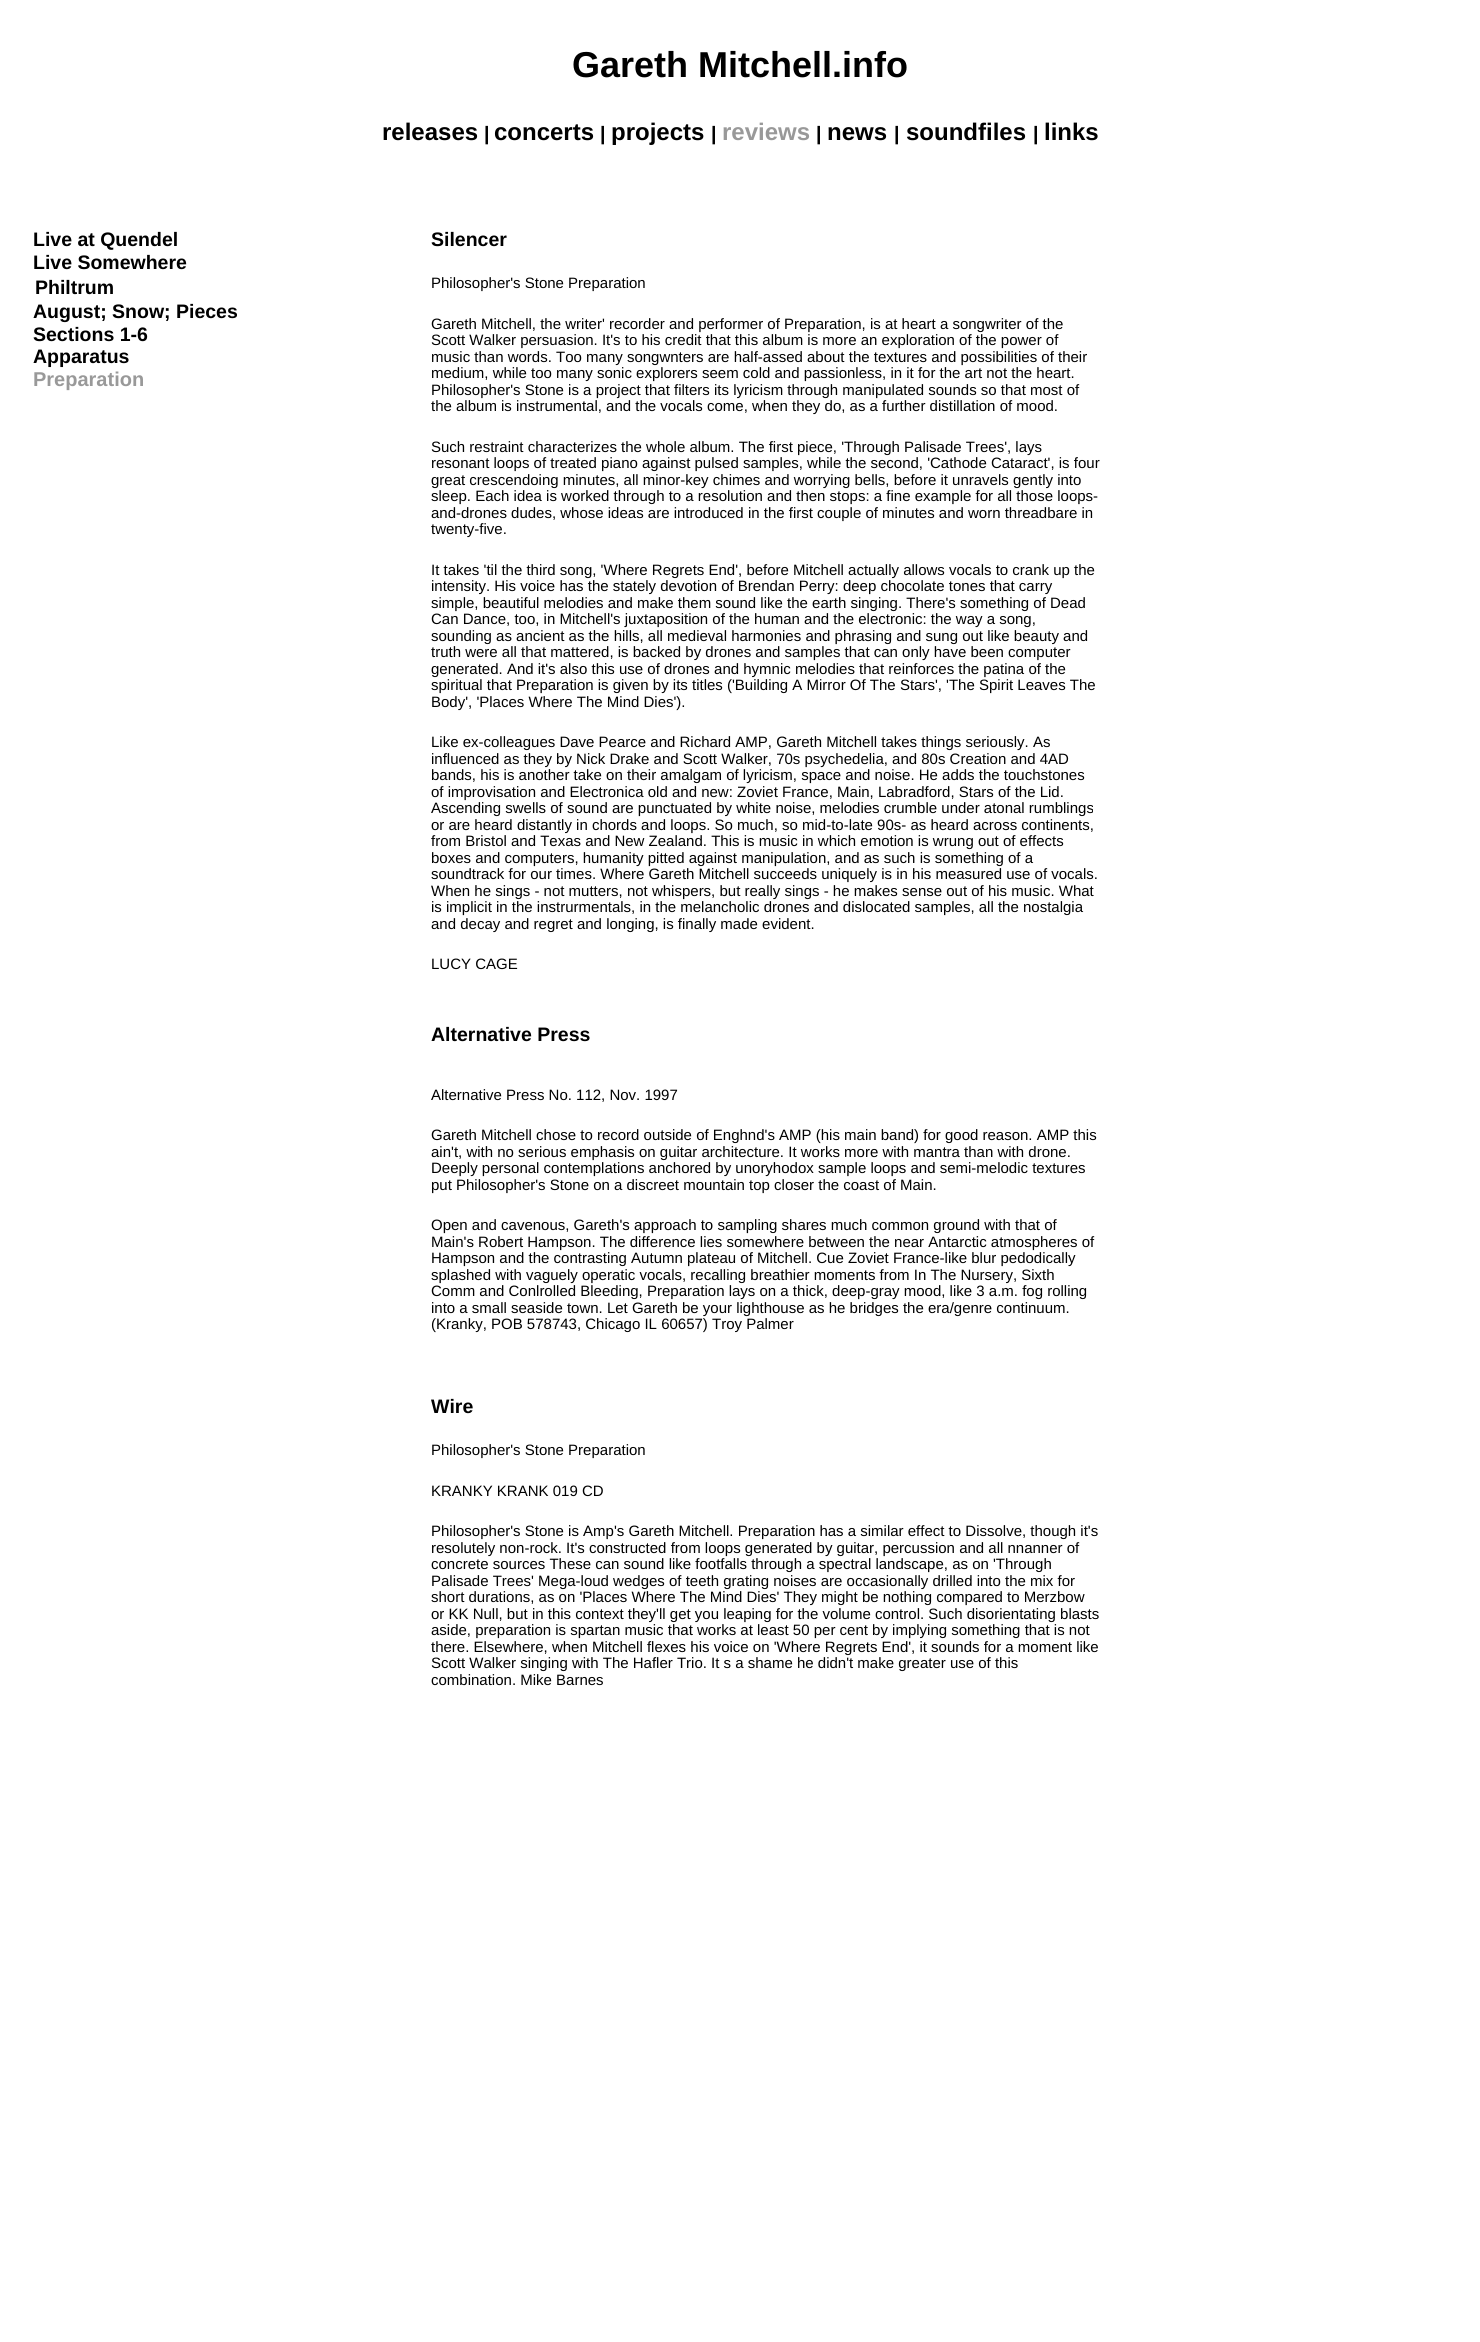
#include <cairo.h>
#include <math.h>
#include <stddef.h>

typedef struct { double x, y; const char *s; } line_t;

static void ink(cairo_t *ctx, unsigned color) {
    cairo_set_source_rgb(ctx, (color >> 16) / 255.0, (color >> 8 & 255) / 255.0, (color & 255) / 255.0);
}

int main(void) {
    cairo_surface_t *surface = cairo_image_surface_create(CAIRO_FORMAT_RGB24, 1480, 2342);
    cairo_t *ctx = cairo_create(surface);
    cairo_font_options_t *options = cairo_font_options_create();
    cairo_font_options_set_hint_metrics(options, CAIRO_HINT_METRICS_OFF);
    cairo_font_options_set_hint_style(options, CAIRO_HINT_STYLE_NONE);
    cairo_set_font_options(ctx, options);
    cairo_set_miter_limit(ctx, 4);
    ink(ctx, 0xFFFFFF);
    cairo_paint(ctx);
    cairo_select_font_face(ctx, "Liberation Sans", CAIRO_FONT_SLANT_NORMAL, CAIRO_FONT_WEIGHT_BOLD);
    cairo_set_font_size(ctx, 36);
    ink(ctx, 0x000000);
    cairo_move_to(ctx, 572, 77);
    cairo_show_text(ctx, "Gareth Mitchell.info");
    cairo_set_font_size(ctx, 24);
    cairo_move_to(ctx, 382, 140);
    cairo_show_text(ctx, "releases");
    cairo_set_font_size(ctx, 19.5);
    cairo_move_to(ctx, 484, 140);
    cairo_show_text(ctx, "|");
    cairo_set_font_size(ctx, 24);
    cairo_move_to(ctx, 494, 140);
    cairo_show_text(ctx, "concerts");
    cairo_set_font_size(ctx, 19.5);
    cairo_move_to(ctx, 600, 140);
    cairo_show_text(ctx, "|");
    cairo_set_font_size(ctx, 24);
    cairo_move_to(ctx, 611, 140);
    cairo_show_text(ctx, "projects");
    cairo_set_font_size(ctx, 19.5);
    cairo_move_to(ctx, 711, 140);
    cairo_show_text(ctx, "|");
    cairo_set_font_size(ctx, 24);
    ink(ctx, 0x999999);
    cairo_move_to(ctx, 722, 140);
    cairo_show_text(ctx, "reviews");
    cairo_set_font_size(ctx, 19.5);
    ink(ctx, 0x000000);
    cairo_move_to(ctx, 816, 140);
    cairo_show_text(ctx, "|");
    cairo_set_font_size(ctx, 24);
    cairo_move_to(ctx, 827, 140);
    cairo_show_text(ctx, "news");
    cairo_set_font_size(ctx, 19.5);
    cairo_move_to(ctx, 894, 140);
    cairo_show_text(ctx, "|");
    cairo_set_font_size(ctx, 24);
    cairo_move_to(ctx, 906, 140);
    cairo_show_text(ctx, "soundfiles");
    cairo_set_font_size(ctx, 19.5);
    cairo_move_to(ctx, 1033, 140);
    cairo_show_text(ctx, "|");
    cairo_set_font_size(ctx, 24);
    cairo_move_to(ctx, 1044, 140);
    cairo_show_text(ctx, "links");
    cairo_set_font_size(ctx, 19.5);
    {
        static const line_t items[] = {
            {33, 246, "Live at Quendel"},
            {33, 269, "Live Somewhere"},
            {35, 294, "Philtrum"},
            {33, 318, "August; Snow; Pieces"},
            {33, 341, "Sections 1-6"},
            {33, 363, "Apparatus"},
        };
        for (size_t i = 0; i < sizeof items / sizeof *items; i++) {
            cairo_move_to(ctx, items[i].x, items[i].y);
            cairo_show_text(ctx, items[i].s);
        }
    }
    cairo_set_font_size(ctx, 20);
    ink(ctx, 0x999999);
    cairo_move_to(ctx, 33, 386);
    cairo_show_text(ctx, "Preparation");
    cairo_set_font_size(ctx, 19.5);
    ink(ctx, 0x000000);
    cairo_move_to(ctx, 431, 246);
    cairo_show_text(ctx, "Silencer");
    cairo_select_font_face(ctx, "Liberation Sans", CAIRO_FONT_SLANT_NORMAL, CAIRO_FONT_WEIGHT_NORMAL);
    cairo_set_font_size(ctx, 15);
    {
        static const line_t items[] = {
            {431, 288, "Philosopher's Stone Preparation"},
            {431, 329, "Gareth Mitchell, the writer' recorder and performer of Preparation, is at heart a songwriter of the"},
            {431, 345, "Scott Walker persuasion. It's to his credit that this album is more an exploration of the power of"},
            {431, 362, "music than words. Too many songwnters are half-assed about the textures and possibilities of their"},
            {431, 378, "medium, while too many sonic explorers seem cold and passionless, in it for the art not the heart."},
            {431, 395, "Philosopher's Stone is a project that filters its lyricism through manipulated sounds so that most of"},
            {431, 411, "the album is instrumental, and the vocals come, when they do, as a further distillation of mood."},
            {431, 452, "Such restraint characterizes the whole album. The first piece, 'Through Palisade Trees', lays"},
            {431, 468, "resonant loops of treated piano against pulsed samples, while the second, 'Cathode Cataract', is four"},
            {431, 485, "great crescendoing minutes, all minor-key chimes and worrying bells, before it unravels gently into"},
            {431, 501, "sleep. Each idea is worked through to a resolution and then stops: a fine example for all those loops-"},
            {431, 518, "and-drones dudes, whose ideas are introduced in the first couple of minutes and worn threadbare in"},
            {431, 534, "twenty-five."},
            {431, 575, "It takes 'til the third song, 'Where Regrets End', before Mitchell actually allows vocals to crank up the"},
            {431, 591, "intensity. His voice has the stately devotion of Brendan Perry: deep chocolate tones that carry"},
            {431, 608, "simple, beautiful melodies and make them sound like the earth singing. There's something of Dead"},
            {431, 624, "Can Dance, too, in Mitchell's juxtaposition of the human and the electronic: the way a song,"},
            {431, 641, "sounding as ancient as the hills, all medieval harmonies and phrasing and sung out like beauty and"},
            {431, 657, "truth were all that mattered, is backed by drones and samples that can only have been computer"},
            {431, 674, "generated. And it's also this use of drones and hymnic melodies that reinforces the patina of the"},
            {431, 690, "spiritual that Preparation is given by its titles ('Building A Mirror Of The Stars', 'The Spirit Leaves The"},
            {431, 707, "Body', 'Places Where The Mind Dies')."},
            {431, 747, "Like ex-colleagues Dave Pearce and Richard AMP, Gareth Mitchell takes things seriously. As"},
            {431, 764, "influenced as they by Nick Drake and Scott Walker, 70s psychedelia, and 80s Creation and 4AD"},
            {431, 780, "bands, his is another take on their amalgam of lyricism, space and noise. He adds the touchstones"},
            {431, 797, "of improvisation and Electronica old and new: Zoviet France, Main, Labradford, Stars of the Lid."},
            {431, 813, "Ascending swells of sound are punctuated by white noise, melodies crumble under atonal rumblings"},
            {431, 830, "or are heard distantly in chords and loops. So much, so mid-to-late 90s- as heard across continents,"},
            {431, 846, "from Bristol and Texas and New Zealand. This is music in which emotion is wrung out of effects"},
            {431, 863, "boxes and computers, humanity pitted against manipulation, and as such is something of a"},
            {431, 879, "soundtrack for our times. Where Gareth Mitchell succeeds uniquely is in his measured use of vocals."},
            {431, 896, "When he sings - not mutters, not whispers, but really sings - he makes sense out of his music. What"},
            {431, 912, "is implicit in the instrurmentals, in the melancholic drones and dislocated samples, all the nostalgia"},
            {431, 929, "and decay and regret and longing, is finally made evident."},
            {431, 969, "LUCY CAGE"},
        };
        for (size_t i = 0; i < sizeof items / sizeof *items; i++) {
            cairo_move_to(ctx, items[i].x, items[i].y);
            cairo_show_text(ctx, items[i].s);
        }
    }
    cairo_select_font_face(ctx, "Liberation Sans", CAIRO_FONT_SLANT_NORMAL, CAIRO_FONT_WEIGHT_BOLD);
    cairo_set_font_size(ctx, 19.5);
    cairo_move_to(ctx, 431, 1041);
    cairo_show_text(ctx, "Alternative Press");
    cairo_select_font_face(ctx, "Liberation Sans", CAIRO_FONT_SLANT_NORMAL, CAIRO_FONT_WEIGHT_NORMAL);
    cairo_set_font_size(ctx, 15);
    {
        static const line_t items[] = {
            {431, 1100, "Alternative Press No. 112, Nov. 1997"},
            {431, 1140, "Gareth Mitchell chose to record outside of Enghnd's AMP (his main band) for good reason. AMP this"},
            {431, 1157, "ain't, with no serious emphasis on guitar architecture. It works more with mantra than with drone."},
            {431, 1173, "Deeply personal contemplations anchored by unoryhodox sample loops and semi-melodic textures"},
            {431, 1190, "put Philosopher's Stone on a discreet mountain top closer the coast of Main."},
            {431, 1230, "Open and cavenous, Gareth's approach to sampling shares much common ground with that of"},
            {431, 1247, "Main's Robert Hampson. The difference lies somewhere between the near Antarctic atmospheres of"},
            {431, 1263, "Hampson and the contrasting Autumn plateau of Mitchell. Cue Zoviet France-like blur pedodically"},
            {431, 1280, "splashed with vaguely operatic vocals, recalling breathier moments from In The Nursery, Sixth"},
            {431, 1296, "Comm and Conlrolled Bleeding, Preparation lays on a thick, deep-gray mood, like 3 a.m. fog rolling"},
            {431, 1313, "into a small seaside town. Let Gareth be your lighthouse as he bridges the era/genre continuum."},
            {431, 1329, "(Kranky, POB 578743, Chicago IL 60657) Troy Palmer"},
        };
        for (size_t i = 0; i < sizeof items / sizeof *items; i++) {
            cairo_move_to(ctx, items[i].x, items[i].y);
            cairo_show_text(ctx, items[i].s);
        }
    }
    cairo_select_font_face(ctx, "Liberation Sans", CAIRO_FONT_SLANT_NORMAL, CAIRO_FONT_WEIGHT_BOLD);
    cairo_set_font_size(ctx, 19.5);
    cairo_move_to(ctx, 431, 1413);
    cairo_show_text(ctx, "Wire");
    cairo_select_font_face(ctx, "Liberation Sans", CAIRO_FONT_SLANT_NORMAL, CAIRO_FONT_WEIGHT_NORMAL);
    cairo_set_font_size(ctx, 15);
    {
        static const line_t items[] = {
            {431, 1455, "Philosopher's Stone Preparation"},
            {431, 1496, "KRANKY KRANK 019 CD"},
            {431, 1536, "Philosopher's Stone is Amp's Gareth Mitchell. Preparation has a similar effect to Dissolve, though it's"},
            {431, 1553, "resolutely non-rock. It's constructed from loops generated by guitar, percussion and all nnanner of"},
            {431, 1569, "concrete sources These can sound like footfalls through a spectral landscape, as on 'Through"},
            {431, 1586, "Palisade Trees' Mega-loud wedges of teeth grating noises are occasionally drilled into the mix for"},
            {431, 1602, "short durations, as on 'Places Where The Mind Dies' They might be nothing compared to Merzbow"},
            {431, 1619, "or KK Null, but in this context they'll get you leaping for the volume control. Such disorientating blasts"},
            {431, 1635, "aside, preparation is spartan music that works at least 50 per cent by implying something that is not"},
            {431, 1652, "there. Elsewhere, when Mitchell flexes his voice on 'Where Regrets End', it sounds for a moment like"},
            {431, 1668, "Scott Walker singing with The Hafler Trio. It s a shame he didn't make greater use of this"},
            {431, 1685, "combination. Mike Barnes"},
        };
        for (size_t i = 0; i < sizeof items / sizeof *items; i++) {
            cairo_move_to(ctx, items[i].x, items[i].y);
            cairo_show_text(ctx, items[i].s);
        }
    }
    cairo_surface_write_to_png(surface, "image.png");
    cairo_font_options_destroy(options);
    cairo_destroy(ctx);
    cairo_surface_destroy(surface);
    return 0;
}
